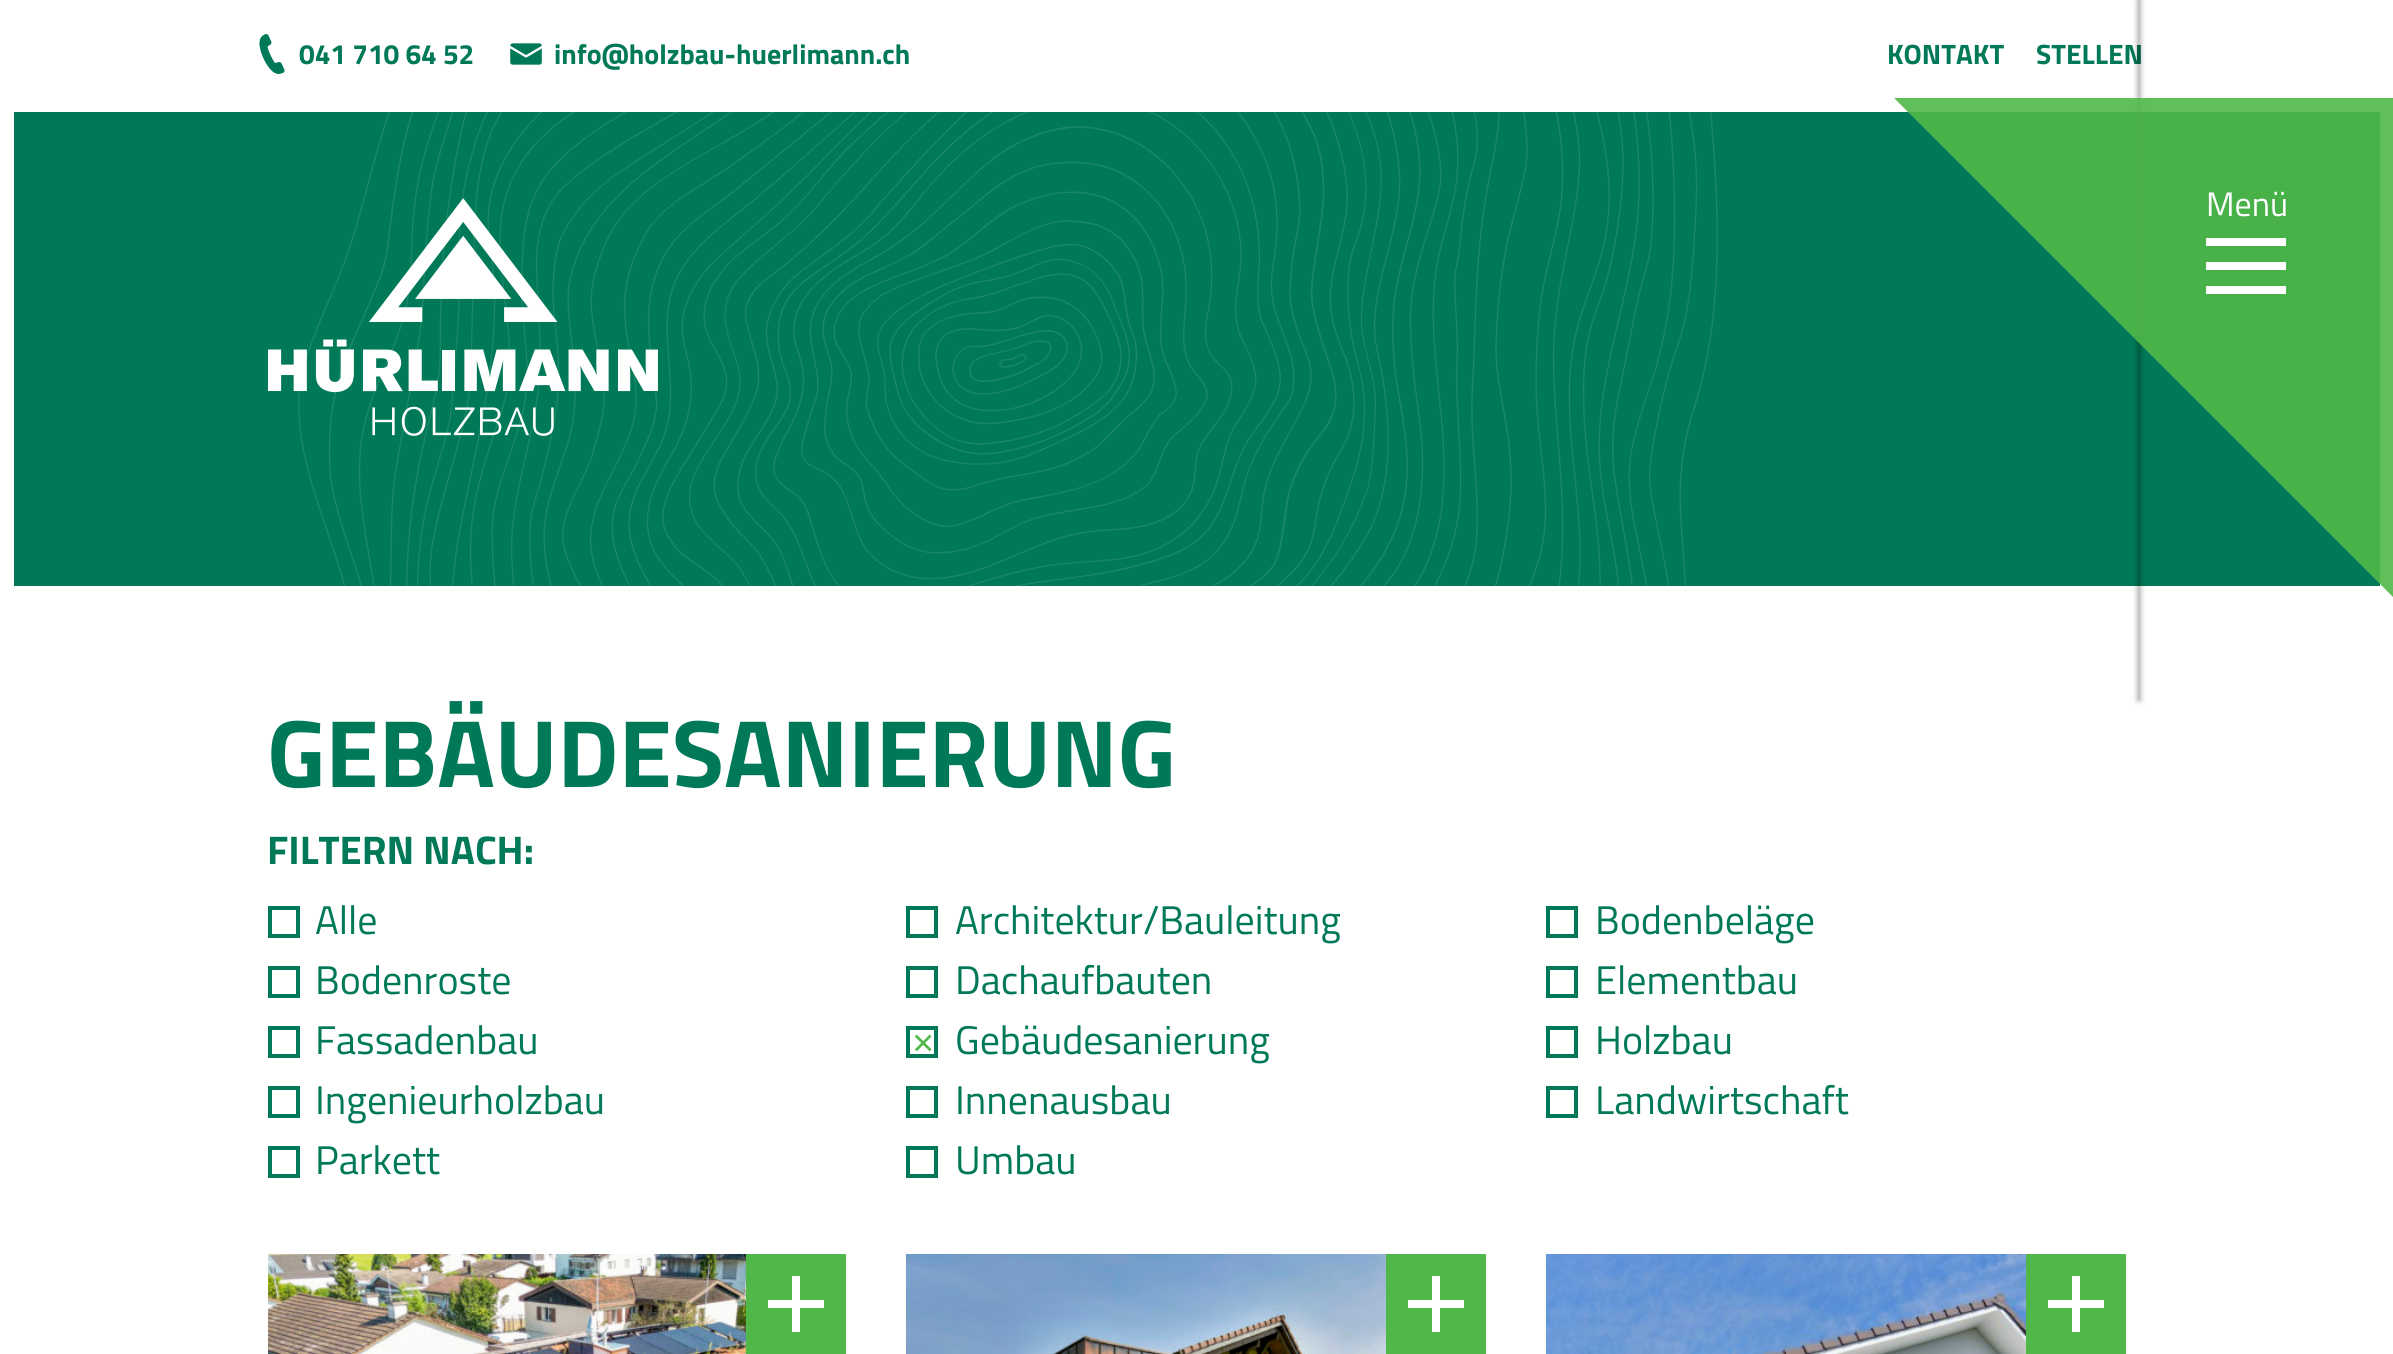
#include <cairo.h>
#include <math.h>
#include <stddef.h>

typedef struct { double x, y; const char *s; } line_t;
typedef struct { double x, y, w, h; unsigned color; } box_t;

static void ink(cairo_t *ctx, unsigned color) {
    cairo_set_source_rgb(ctx, (color >> 16) / 255.0, (color >> 8 & 255) / 255.0, (color & 255) / 255.0);
}

static void round_path(cairo_t *ctx, double x, double y, double w, double h, double r) {
    cairo_new_sub_path(ctx);
    cairo_arc(ctx, x + w - r, y + h - r, r, 0, M_PI / 2);
    cairo_arc(ctx, x + r, y + h - r, r, M_PI / 2, M_PI);
    cairo_arc(ctx, x + r, y + r, r, M_PI, 1.5 * M_PI);
    cairo_arc(ctx, x + w - r, y + r, r, 1.5 * M_PI, 2 * M_PI);
    cairo_close_path(ctx);
}

static void blur_box(cairo_t *ctx, double x, double y, double w, double h, double r, double blur, double alpha) {
    cairo_push_group_with_content(ctx, CAIRO_CONTENT_ALPHA);
    cairo_set_operator(ctx, CAIRO_OPERATOR_SOURCE);
    for (int i = 15; i >= -15 && fmin(w, h) + blur * i / 3 > 0; i -= 2) {
        double e = blur * i / 6;
        cairo_set_source_rgba(ctx, 0, 0, 0, alpha * erfc((i - 1) / 8.5) / 2);
        round_path(ctx, x - e, y - e, w + 2 * e, h + 2 * e, fmax(0, fmin(r + e + blur * .6, fmin(w, h) / 2 + e)));
        cairo_fill(ctx);
    }
    cairo_pattern_t *soft = cairo_pop_group(ctx);
    cairo_mask(ctx, soft);
    cairo_pattern_destroy(soft);
}

static void paste(cairo_t *ctx, const char *path, double x, double y, double w, double h) {
    cairo_surface_t *image = cairo_image_surface_create_from_png(path);
    cairo_save(ctx);
    cairo_set_source_surface(ctx, image, x, y);
    cairo_rectangle(ctx, x, y, w, h);
    cairo_fill(ctx);
    cairo_restore(ctx);
    cairo_surface_destroy(image);
}

int main(void) {
    cairo_surface_t *surface = cairo_image_surface_create(CAIRO_FORMAT_RGB24, 2393, 1354);
    cairo_t *ctx = cairo_create(surface);
    cairo_font_options_t *options = cairo_font_options_create();
    cairo_font_options_set_hint_metrics(options, CAIRO_HINT_METRICS_OFF);
    cairo_font_options_set_hint_style(options, CAIRO_HINT_STYLE_NONE);
    cairo_set_font_options(ctx, options);
    cairo_set_miter_limit(ctx, 4);
    ink(ctx, 0xFFFFFF);
    cairo_paint(ctx);
    paste(ctx, "media/1.png", 259, 34, 26, 40);
    cairo_select_font_face(ctx, "Titillium Web", CAIRO_FONT_SLANT_NORMAL, CAIRO_FONT_WEIGHT_BOLD);
    cairo_set_font_size(ctx, 28);
    ink(ctx, 0x007958);
    cairo_move_to(ctx, 299, 64);
    cairo_show_text(ctx, "041 710 64 52");
    paste(ctx, "media/2.png", 510, 43, 32, 22);
    {
        static const line_t items[] = {
            {554, 64, "info@holzbau-huerlimann.ch"},
            {1887, 64, "KONTAKT"},
            {2036, 64, "STELLEN"},
        };
        for (size_t i = 0; i < sizeof items / sizeof *items; i++) {
            cairo_move_to(ctx, items[i].x, items[i].y);
            cairo_show_text(ctx, items[i].s);
        }
    }
    cairo_rectangle(ctx, 14, 112, 2366, 474);
    cairo_fill(ctx);
    paste(ctx, "media/4.png", 298, 112, 1420, 474);
    paste(ctx, "media/3.png", 268, 198, 390, 238);
    ink(ctx, 0x000000);
    blur_box(ctx, 2138, 0, 2, 700, 0, 3, 0.4);
    cairo_set_source_rgba(ctx, 0.314, 0.722, 0.282, 0.9);
    cairo_new_path(ctx);
    cairo_move_to(ctx, 1894, 98);
    cairo_line_to(ctx, 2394, 98);
    cairo_line_to(ctx, 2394, 598);
    cairo_close_path(ctx);
    cairo_fill(ctx);
    cairo_select_font_face(ctx, "Titillium Web", CAIRO_FONT_SLANT_NORMAL, CAIRO_FONT_WEIGHT_NORMAL);
    cairo_set_font_size(ctx, 34);
    ink(ctx, 0xFFFFFF);
    cairo_move_to(ctx, 2206, 216);
    cairo_show_text(ctx, "Menü");
    {
        static const box_t items[] = {
            {2206, 238, 80, 8, 0xFFFFFF},
            {2206, 262, 80, 8, 0xFFFFFF},
            {2206, 286, 80, 8, 0xFFFFFF},
        };
        for (size_t i = 0; i < sizeof items / sizeof *items; i++) {
            ink(ctx, items[i].color);
            cairo_rectangle(ctx, items[i].x, items[i].y, items[i].w, items[i].h);
            cairo_fill(ctx);
        }
    }
    cairo_select_font_face(ctx, "Titillium Web", CAIRO_FONT_SLANT_NORMAL, CAIRO_FONT_WEIGHT_BOLD);
    cairo_set_font_size(ctx, 95.9);
    ink(ctx, 0x007958);
    cairo_move_to(ctx, 267, 787);
    cairo_show_text(ctx, "GEBÄUDESANIERUNG");
    cairo_set_font_size(ctx, 40);
    cairo_move_to(ctx, 267, 864);
    cairo_show_text(ctx, "FILTERN NACH:");
    cairo_rectangle(ctx, 270, 908, 28, 28);
    cairo_set_line_width(ctx, 4);
    cairo_stroke(ctx);
    cairo_select_font_face(ctx, "Titillium Web", CAIRO_FONT_SLANT_NORMAL, CAIRO_FONT_WEIGHT_NORMAL);
    cairo_move_to(ctx, 315, 934);
    cairo_show_text(ctx, "Alle");
    cairo_rectangle(ctx, 908, 908, 28, 28);
    cairo_stroke(ctx);
    cairo_move_to(ctx, 955, 934);
    cairo_show_text(ctx, "Architektur/Bauleitung");
    cairo_rectangle(ctx, 1548, 908, 28, 28);
    cairo_stroke(ctx);
    cairo_move_to(ctx, 1595, 934);
    cairo_show_text(ctx, "Bodenbeläge");
    cairo_rectangle(ctx, 270, 968, 28, 28);
    cairo_stroke(ctx);
    cairo_move_to(ctx, 315, 994);
    cairo_show_text(ctx, "Bodenroste");
    cairo_rectangle(ctx, 908, 968, 28, 28);
    cairo_stroke(ctx);
    cairo_move_to(ctx, 955, 994);
    cairo_show_text(ctx, "Dachaufbauten");
    cairo_rectangle(ctx, 1548, 968, 28, 28);
    cairo_stroke(ctx);
    cairo_move_to(ctx, 1595, 994);
    cairo_show_text(ctx, "Elementbau");
    cairo_rectangle(ctx, 270, 1028, 28, 28);
    cairo_stroke(ctx);
    cairo_move_to(ctx, 315, 1054);
    cairo_show_text(ctx, "Fassadenbau");
    cairo_rectangle(ctx, 908, 1028, 28, 28);
    cairo_stroke(ctx);
    cairo_move_to(ctx, 955, 1054);
    cairo_show_text(ctx, "Gebäudesanierung");
    ink(ctx, 0x50B848);
    cairo_move_to(ctx, 912, 1053);
    cairo_show_text(ctx, "×");
    cairo_rectangle(ctx, 1548, 1028, 28, 28);
    ink(ctx, 0x007958);
    cairo_stroke(ctx);
    cairo_move_to(ctx, 1595, 1054);
    cairo_show_text(ctx, "Holzbau");
    cairo_rectangle(ctx, 270, 1088, 28, 28);
    cairo_stroke(ctx);
    cairo_move_to(ctx, 315, 1114);
    cairo_show_text(ctx, "Ingenieurholzbau");
    cairo_rectangle(ctx, 908, 1088, 28, 28);
    cairo_stroke(ctx);
    cairo_move_to(ctx, 955, 1114);
    cairo_show_text(ctx, "Innenausbau");
    cairo_rectangle(ctx, 1548, 1088, 28, 28);
    cairo_stroke(ctx);
    cairo_move_to(ctx, 1595, 1114);
    cairo_show_text(ctx, "Landwirtschaft");
    cairo_rectangle(ctx, 270, 1148, 28, 28);
    cairo_stroke(ctx);
    cairo_move_to(ctx, 315, 1174);
    cairo_show_text(ctx, "Parkett");
    cairo_rectangle(ctx, 908, 1148, 28, 28);
    cairo_stroke(ctx);
    cairo_move_to(ctx, 955, 1174);
    cairo_show_text(ctx, "Umbau");
    paste(ctx, "media/5.png", 268, 1254, 478, 100);
    {
        static const box_t items[] = {
            {746, 1254, 100, 100, 0x50B848},
            {792, 1276, 8, 56, 0xFFFFFF},
            {768, 1300, 56, 8, 0xFFFFFF},
        };
        for (size_t i = 0; i < sizeof items / sizeof *items; i++) {
            ink(ctx, items[i].color);
            cairo_rectangle(ctx, items[i].x, items[i].y, items[i].w, items[i].h);
            cairo_fill(ctx);
        }
    }
    paste(ctx, "media/6.png", 906, 1254, 480, 100);
    {
        static const box_t items[] = {
            {1386, 1254, 100, 100, 0x50B848},
            {1432, 1276, 8, 56, 0xFFFFFF},
            {1408, 1300, 56, 8, 0xFFFFFF},
        };
        for (size_t i = 0; i < sizeof items / sizeof *items; i++) {
            ink(ctx, items[i].color);
            cairo_rectangle(ctx, items[i].x, items[i].y, items[i].w, items[i].h);
            cairo_fill(ctx);
        }
    }
    paste(ctx, "media/7.png", 1546, 1254, 480, 100);
    {
        static const box_t items[] = {
            {2026, 1254, 100, 100, 0x50B848},
            {2072, 1276, 8, 56, 0xFFFFFF},
            {2048, 1300, 56, 8, 0xFFFFFF},
        };
        for (size_t i = 0; i < sizeof items / sizeof *items; i++) {
            ink(ctx, items[i].color);
            cairo_rectangle(ctx, items[i].x, items[i].y, items[i].w, items[i].h);
            cairo_fill(ctx);
        }
    }
    cairo_surface_write_to_png(surface, "image.png");
    cairo_font_options_destroy(options);
    cairo_destroy(ctx);
    cairo_surface_destroy(surface);
    return 0;
}
